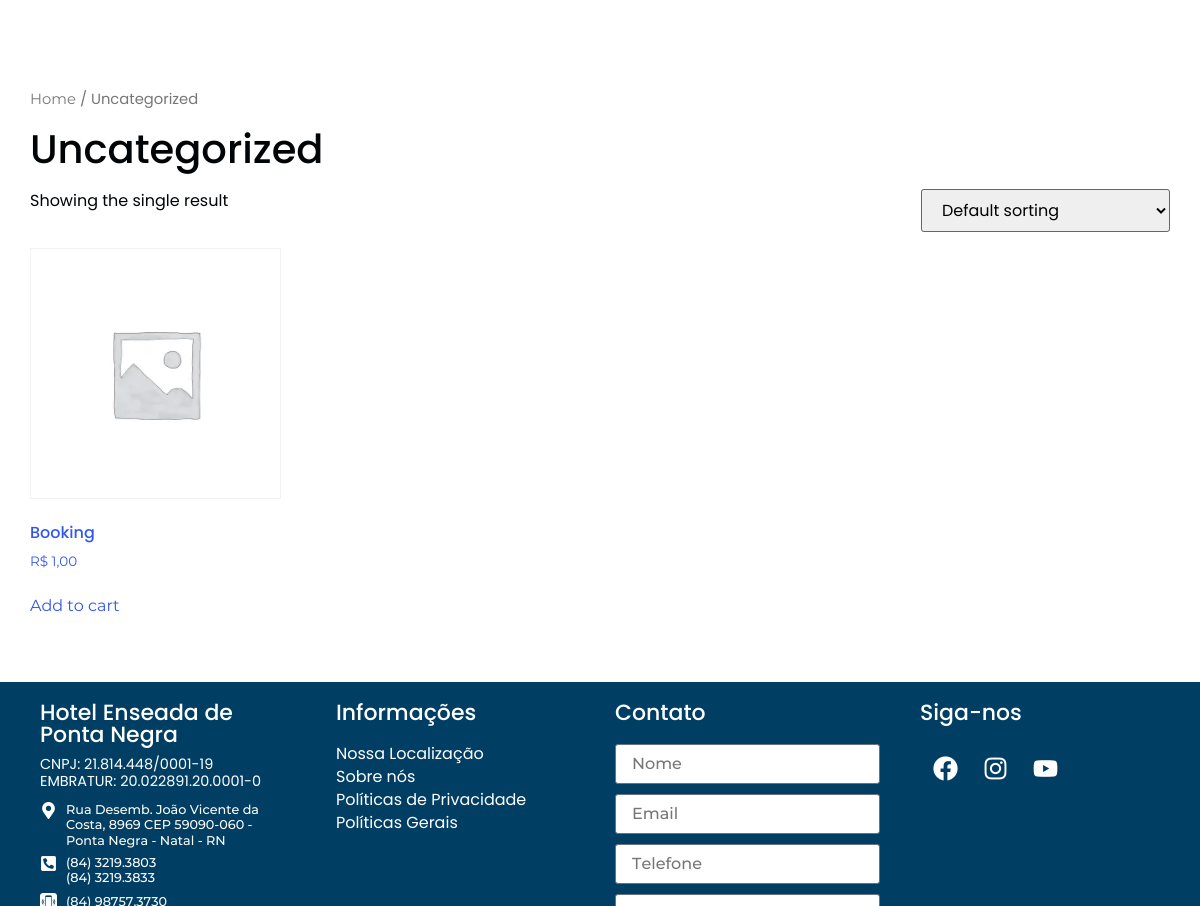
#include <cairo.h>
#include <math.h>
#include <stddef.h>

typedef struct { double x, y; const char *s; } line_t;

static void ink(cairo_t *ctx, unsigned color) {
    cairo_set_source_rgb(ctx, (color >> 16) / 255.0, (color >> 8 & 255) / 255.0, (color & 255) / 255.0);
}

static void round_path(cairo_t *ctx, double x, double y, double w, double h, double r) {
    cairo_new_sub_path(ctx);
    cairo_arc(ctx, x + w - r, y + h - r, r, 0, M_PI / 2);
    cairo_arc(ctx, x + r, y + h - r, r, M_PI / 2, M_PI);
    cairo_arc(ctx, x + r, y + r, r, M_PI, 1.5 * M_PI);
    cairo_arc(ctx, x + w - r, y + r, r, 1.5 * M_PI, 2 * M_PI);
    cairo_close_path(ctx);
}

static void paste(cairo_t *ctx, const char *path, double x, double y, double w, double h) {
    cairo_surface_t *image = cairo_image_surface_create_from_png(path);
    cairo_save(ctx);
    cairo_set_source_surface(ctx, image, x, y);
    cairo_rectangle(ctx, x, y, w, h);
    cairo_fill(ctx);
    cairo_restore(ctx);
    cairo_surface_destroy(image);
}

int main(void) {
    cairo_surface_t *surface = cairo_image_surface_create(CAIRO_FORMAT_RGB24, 1200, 906);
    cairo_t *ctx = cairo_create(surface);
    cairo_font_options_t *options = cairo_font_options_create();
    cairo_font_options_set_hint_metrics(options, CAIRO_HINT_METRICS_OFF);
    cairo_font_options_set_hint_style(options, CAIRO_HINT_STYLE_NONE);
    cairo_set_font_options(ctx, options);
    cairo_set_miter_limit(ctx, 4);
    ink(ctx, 0xFFFFFF);
    cairo_paint(ctx);
    cairo_select_font_face(ctx, "Montserrat", CAIRO_FONT_SLANT_NORMAL, CAIRO_FONT_WEIGHT_NORMAL);
    cairo_set_font_size(ctx, 14.75);
    ink(ctx, 0x767676);
    cairo_move_to(ctx, 30, 104);
    cairo_show_text(ctx, "Home");
    cairo_select_font_face(ctx, "Poppins", CAIRO_FONT_SLANT_NORMAL, CAIRO_FONT_WEIGHT_NORMAL);
    cairo_move_to(ctx, 80, 104);
    cairo_show_text(ctx, "/ Uncategorized");
    cairo_select_font_face(ctx, "Poppins Medium", CAIRO_FONT_SLANT_NORMAL, CAIRO_FONT_WEIGHT_NORMAL);
    cairo_set_font_size(ctx, 40);
    ink(ctx, 0x000406);
    cairo_move_to(ctx, 30, 163);
    cairo_show_text(ctx, "Uncategorized");
    cairo_select_font_face(ctx, "Poppins", CAIRO_FONT_SLANT_NORMAL, CAIRO_FONT_WEIGHT_NORMAL);
    cairo_set_font_size(ctx, 16);
    cairo_move_to(ctx, 30, 206);
    cairo_show_text(ctx, "Showing the single result");
    ink(ctx, 0xEFEFEF);
    round_path(ctx, 921.5, 189.5, 248, 42, 2.5);
    cairo_fill_preserve(ctx);
    ink(ctx, 0x666666);
    cairo_set_line_width(ctx, 1);
    cairo_stroke(ctx);
    cairo_new_path(ctx);
    cairo_move_to(ctx, 1157, 208.5);
    cairo_line_to(ctx, 1161, 212.5);
    cairo_line_to(ctx, 1165, 208.5);
    ink(ctx, 0x000000);
    cairo_set_line_width(ctx, 2);
    cairo_stroke(ctx);
    cairo_move_to(ctx, 942, 216);
    cairo_show_text(ctx, "Default sorting");
    cairo_rectangle(ctx, 30.5, 248.5, 250, 250);
    ink(ctx, 0xF2F2F2);
    cairo_set_line_width(ctx, 1);
    cairo_stroke(ctx);
    paste(ctx, "media/1.png", 111, 332, 92, 90);
    cairo_select_font_face(ctx, "Poppins Medium", CAIRO_FONT_SLANT_NORMAL, CAIRO_FONT_WEIGHT_NORMAL);
    ink(ctx, 0x3157ED);
    cairo_move_to(ctx, 30, 538);
    cairo_show_text(ctx, "Booking");
    cairo_select_font_face(ctx, "Montserrat", CAIRO_FONT_SLANT_NORMAL, CAIRO_FONT_WEIGHT_NORMAL);
    cairo_set_font_size(ctx, 13.5);
    cairo_move_to(ctx, 30, 566);
    cairo_show_text(ctx, "R$ 1,00");
    cairo_set_font_size(ctx, 16);
    cairo_move_to(ctx, 30, 611);
    cairo_show_text(ctx, "Add to cart");
    ink(ctx, 0x003E63);
    cairo_rectangle(ctx, 0, 682, 1200, 224);
    cairo_fill(ctx);
    cairo_select_font_face(ctx, "Poppins Medium", CAIRO_FONT_SLANT_NORMAL, CAIRO_FONT_WEIGHT_NORMAL);
    cairo_set_font_size(ctx, 22);
    ink(ctx, 0xFFFFFF);
    cairo_move_to(ctx, 40, 720);
    cairo_show_text(ctx, "Hotel Enseada de");
    cairo_move_to(ctx, 40, 742);
    cairo_show_text(ctx, "Ponta Negra");
    cairo_select_font_face(ctx, "Poppins", CAIRO_FONT_SLANT_NORMAL, CAIRO_FONT_WEIGHT_NORMAL);
    cairo_set_font_size(ctx, 14.4);
    cairo_move_to(ctx, 40, 769);
    cairo_show_text(ctx, "CNPJ: 21.814.448/0001-19");
    cairo_move_to(ctx, 40, 786);
    cairo_show_text(ctx, "EMBRATUR: 20.022891.20.0001-0");
    paste(ctx, "media/2.png", 42, 802, 13, 17);
    cairo_select_font_face(ctx, "Montserrat Medium", CAIRO_FONT_SLANT_NORMAL, CAIRO_FONT_WEIGHT_NORMAL);
    cairo_set_font_size(ctx, 12.75);
    ink(ctx, 0xFDFBF6);
    {
        static const line_t items[] = {
            {66, 814, "Rua Desemb. João Vicente da"},
            {66, 829, "Costa, 8969 CEP 59090-060 -"},
            {66, 845, "Ponta Negra - Natal - RN"},
        };
        for (size_t i = 0; i < sizeof items / sizeof *items; i++) {
            cairo_move_to(ctx, items[i].x, items[i].y);
            cairo_show_text(ctx, items[i].s);
        }
    }
    paste(ctx, "media/3.png", 41, 856, 15, 15);
    ink(ctx, 0xFFFFFF);
    cairo_move_to(ctx, 66, 867);
    cairo_show_text(ctx, "(84) 3219.3803");
    cairo_move_to(ctx, 66, 882);
    cairo_show_text(ctx, "(84) 3219.3833");
    paste(ctx, "media/4.png", 40, 893, 17, 13);
    ink(ctx, 0xFDFBF6);
    cairo_move_to(ctx, 66, 906);
    cairo_show_text(ctx, "(84) 98757.3730");
    cairo_select_font_face(ctx, "Poppins Medium", CAIRO_FONT_SLANT_NORMAL, CAIRO_FONT_WEIGHT_NORMAL);
    cairo_set_font_size(ctx, 22);
    ink(ctx, 0xFFFFFF);
    cairo_move_to(ctx, 336, 720);
    cairo_show_text(ctx, "Informações");
    cairo_select_font_face(ctx, "Poppins", CAIRO_FONT_SLANT_NORMAL, CAIRO_FONT_WEIGHT_NORMAL);
    cairo_set_font_size(ctx, 16);
    {
        static const line_t items[] = {
            {336, 759, "Nossa Localização"},
            {336, 782, "Sobre nós"},
            {336, 805, "Políticas de Privacidade"},
            {336, 828, "Políticas Gerais"},
        };
        for (size_t i = 0; i < sizeof items / sizeof *items; i++) {
            cairo_move_to(ctx, items[i].x, items[i].y);
            cairo_show_text(ctx, items[i].s);
        }
    }
    cairo_select_font_face(ctx, "Poppins Medium", CAIRO_FONT_SLANT_NORMAL, CAIRO_FONT_WEIGHT_NORMAL);
    cairo_set_font_size(ctx, 22);
    cairo_move_to(ctx, 615, 720);
    cairo_show_text(ctx, "Contato");
    round_path(ctx, 615.5, 744.5, 264, 39, 2.5);
    cairo_fill_preserve(ctx);
    ink(ctx, 0x69727D);
    cairo_stroke(ctx);
    cairo_select_font_face(ctx, "Montserrat Medium", CAIRO_FONT_SLANT_NORMAL, CAIRO_FONT_WEIGHT_NORMAL);
    cairo_set_font_size(ctx, 16);
    ink(ctx, 0x767676);
    cairo_move_to(ctx, 632, 769);
    cairo_show_text(ctx, "Nome");
    ink(ctx, 0xFFFFFF);
    round_path(ctx, 615.5, 794.5, 264, 39, 2.5);
    cairo_fill_preserve(ctx);
    ink(ctx, 0x69727D);
    cairo_stroke(ctx);
    ink(ctx, 0x767676);
    cairo_move_to(ctx, 632, 819);
    cairo_show_text(ctx, "Email");
    ink(ctx, 0xFFFFFF);
    round_path(ctx, 615.5, 844.5, 264, 39, 2.5);
    cairo_fill_preserve(ctx);
    ink(ctx, 0x69727D);
    cairo_stroke(ctx);
    ink(ctx, 0x767676);
    cairo_move_to(ctx, 632, 869);
    cairo_show_text(ctx, "Telefone");
    ink(ctx, 0xFFFFFF);
    round_path(ctx, 615.5, 894.5, 264, 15, 2.5);
    cairo_fill_preserve(ctx);
    ink(ctx, 0x69727D);
    cairo_stroke(ctx);
    cairo_select_font_face(ctx, "Poppins Medium", CAIRO_FONT_SLANT_NORMAL, CAIRO_FONT_WEIGHT_NORMAL);
    cairo_set_font_size(ctx, 22);
    ink(ctx, 0xFFFFFF);
    cairo_move_to(ctx, 920, 720);
    cairo_show_text(ctx, "Siga-nos");
    paste(ctx, "media/5.png", 933, 756, 25, 25);
    paste(ctx, "media/6.png", 984, 757, 23, 23);
    paste(ctx, "media/7.png", 1033, 760, 25, 17);
    cairo_surface_write_to_png(surface, "image.png");
    cairo_font_options_destroy(options);
    cairo_destroy(ctx);
    cairo_surface_destroy(surface);
    return 0;
}
